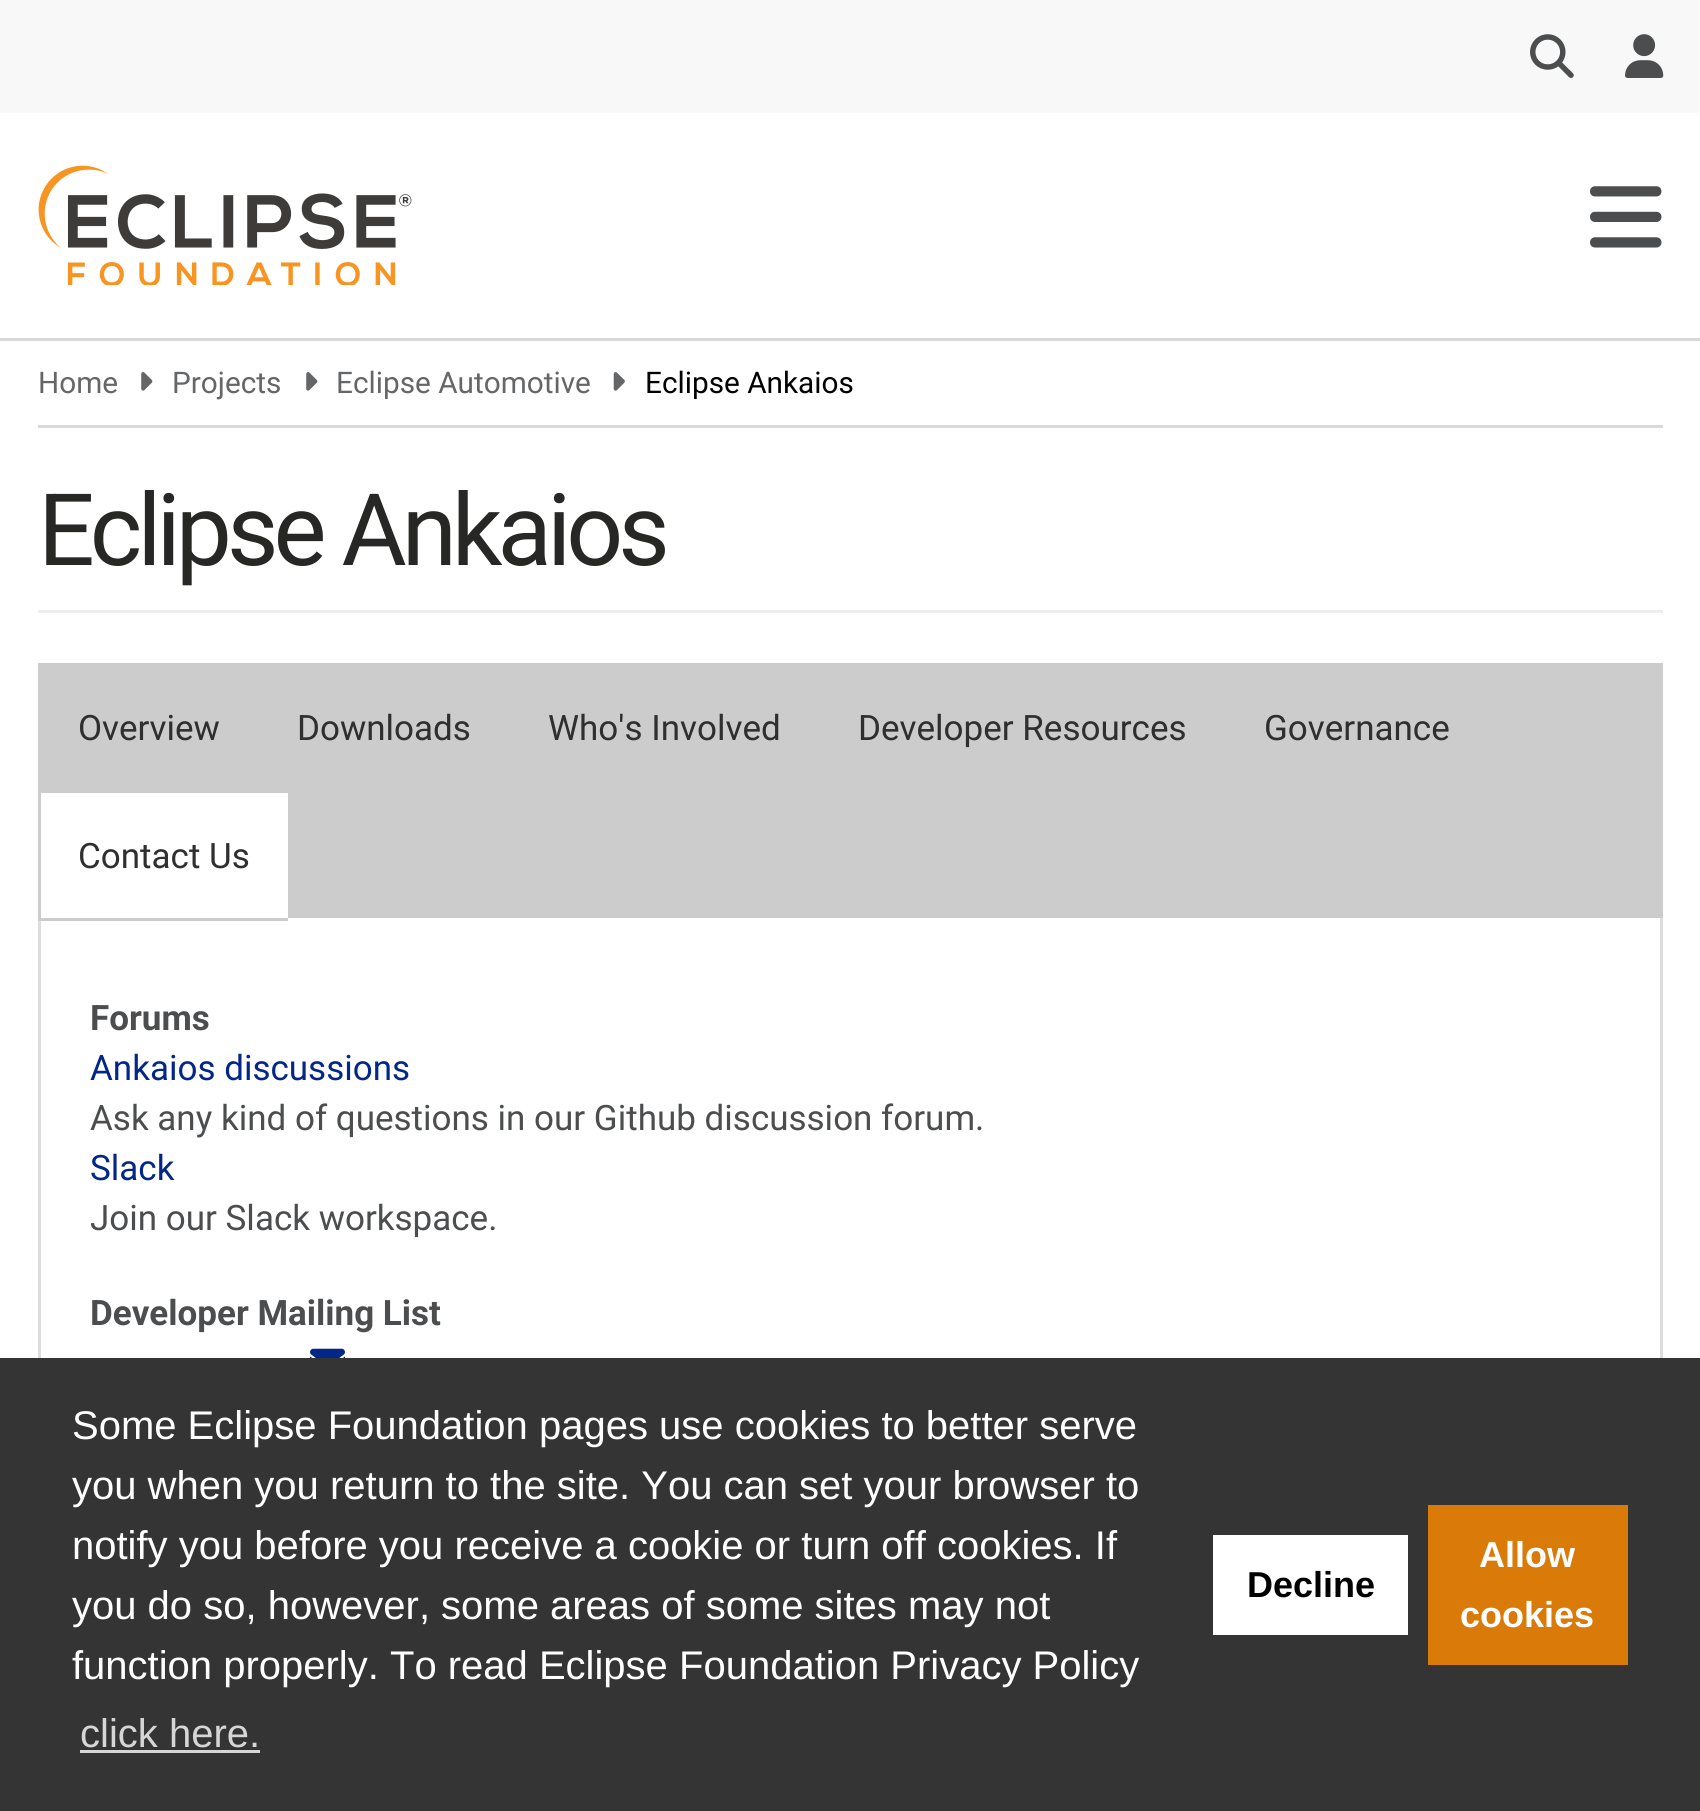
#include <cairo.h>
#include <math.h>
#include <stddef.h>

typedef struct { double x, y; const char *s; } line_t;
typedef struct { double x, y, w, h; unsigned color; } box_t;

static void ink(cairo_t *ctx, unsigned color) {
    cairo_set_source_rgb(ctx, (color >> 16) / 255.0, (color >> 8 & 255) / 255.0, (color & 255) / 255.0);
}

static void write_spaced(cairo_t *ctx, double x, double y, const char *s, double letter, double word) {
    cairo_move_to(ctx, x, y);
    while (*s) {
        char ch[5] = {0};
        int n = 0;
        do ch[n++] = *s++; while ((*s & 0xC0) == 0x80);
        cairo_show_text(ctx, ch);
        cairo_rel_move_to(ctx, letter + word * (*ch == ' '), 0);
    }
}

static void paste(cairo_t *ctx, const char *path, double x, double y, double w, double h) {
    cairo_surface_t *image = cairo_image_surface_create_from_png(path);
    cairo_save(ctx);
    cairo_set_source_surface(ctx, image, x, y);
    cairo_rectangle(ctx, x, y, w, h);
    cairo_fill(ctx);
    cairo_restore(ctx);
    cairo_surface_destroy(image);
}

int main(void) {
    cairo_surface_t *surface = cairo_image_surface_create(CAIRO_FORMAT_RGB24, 1700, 1811);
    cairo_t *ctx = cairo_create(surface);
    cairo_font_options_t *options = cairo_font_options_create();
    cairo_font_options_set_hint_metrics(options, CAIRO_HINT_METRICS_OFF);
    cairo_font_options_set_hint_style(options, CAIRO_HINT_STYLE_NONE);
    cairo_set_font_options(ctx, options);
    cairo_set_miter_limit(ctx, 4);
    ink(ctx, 0xFFFFFF);
    cairo_paint(ctx);
    ink(ctx, 0xF8F8F8);
    cairo_rectangle(ctx, 0, 0, 1700, 113);
    cairo_fill(ctx);
    paste(ctx, "media/1.png", 1530, 34, 44, 44);
    paste(ctx, "media/2.png", 1625, 34, 39, 44);
    ink(ctx, 0xD9D9D9);
    cairo_rectangle(ctx, 0, 338, 1700, 3);
    cairo_fill(ctx);
    paste(ctx, "media/3.png", 38, 165, 374, 120);
    paste(ctx, "media/4.png", 1590, 186, 72, 62);
    cairo_rectangle(ctx, 38, 425, 1625, 3);
    cairo_fill(ctx);
    cairo_select_font_face(ctx, "Roboto", CAIRO_FONT_SLANT_NORMAL, CAIRO_FONT_WEIGHT_NORMAL);
    cairo_set_font_size(ctx, 29.75);
    ink(ctx, 0x656668);
    cairo_move_to(ctx, 38, 393);
    cairo_show_text(ctx, "Home");
    paste(ctx, "media/5.png", 141, 372, 12, 19);
    cairo_move_to(ctx, 172, 393);
    cairo_show_text(ctx, "Projects");
    paste(ctx, "media/5.png", 306, 372, 12, 19);
    cairo_move_to(ctx, 336, 393);
    cairo_show_text(ctx, "Eclipse Automotive");
    paste(ctx, "media/6.png", 613, 372, 12, 19);
    ink(ctx, 0x000000);
    cairo_move_to(ctx, 645, 393);
    cairo_show_text(ctx, "Eclipse Ankaios");
    ink(ctx, 0xEEEEEE);
    cairo_rectangle(ctx, 38, 610, 1625, 3);
    cairo_fill(ctx);
    cairo_set_font_size(ctx, 100);
    ink(ctx, 0x272726);
    write_spaced(ctx, 38, 565, "Eclipse Ankaios", -5, 0);
    ink(ctx, 0xCCCCCC);
    cairo_rectangle(ctx, 38, 663, 1625, 255);
    cairo_fill(ctx);
    cairo_set_font_size(ctx, 35);
    ink(ctx, 0x2F2F2F);
    {
        static const line_t items[] = {
            {78, 740, "Overview"},
            {297, 740, "Downloads"},
            {548, 740, "Who's Involved"},
            {858, 740, "Developer Resources"},
            {1264, 740, "Governance"},
        };
        for (size_t i = 0; i < sizeof items / sizeof *items; i++) {
            cairo_move_to(ctx, items[i].x, items[i].y);
            cairo_show_text(ctx, items[i].s);
        }
    }
    {
        static const box_t items[] = {
            {41, 793, 247, 125, 0xFFFFFF},
            {38, 918, 3, 440, 0xDDDDDD},
            {38, 918, 250, 3, 0xCCCCCC},
        };
        for (size_t i = 0; i < sizeof items / sizeof *items; i++) {
            ink(ctx, items[i].color);
            cairo_rectangle(ctx, items[i].x, items[i].y, items[i].w, items[i].h);
            cairo_fill(ctx);
        }
    }
    ink(ctx, 0x2F2F2F);
    cairo_move_to(ctx, 78, 868);
    cairo_show_text(ctx, "Contact Us");
    ink(ctx, 0xDDDDDD);
    cairo_rectangle(ctx, 1660, 918, 3, 440);
    cairo_fill(ctx);
    cairo_select_font_face(ctx, "Roboto", CAIRO_FONT_SLANT_NORMAL, CAIRO_FONT_WEIGHT_BOLD);
    ink(ctx, 0x4C4D4E);
    cairo_move_to(ctx, 90, 1030);
    cairo_show_text(ctx, "Forums");
    cairo_select_font_face(ctx, "Roboto", CAIRO_FONT_SLANT_NORMAL, CAIRO_FONT_WEIGHT_NORMAL);
    ink(ctx, 0x032788);
    cairo_move_to(ctx, 90, 1080);
    cairo_show_text(ctx, "Ankaios discussions");
    ink(ctx, 0x4C4D4E);
    cairo_move_to(ctx, 90, 1130);
    cairo_show_text(ctx, "Ask any kind of questions in our Github discussion forum.");
    ink(ctx, 0x032788);
    cairo_move_to(ctx, 90, 1180);
    cairo_show_text(ctx, "Slack");
    ink(ctx, 0x4C4D4E);
    cairo_move_to(ctx, 90, 1230);
    cairo_show_text(ctx, "Join our Slack workspace.");
    cairo_select_font_face(ctx, "Roboto", CAIRO_FONT_SLANT_NORMAL, CAIRO_FONT_WEIGHT_BOLD);
    cairo_move_to(ctx, 90, 1325);
    cairo_show_text(ctx, "Developer Mailing List");
    paste(ctx, "media/7.png", 310, 1348, 35, 10);
    ink(ctx, 0x353434);
    cairo_rectangle(ctx, 0, 1358, 1700, 453);
    cairo_fill(ctx);
    cairo_select_font_face(ctx, "Liberation Sans", CAIRO_FONT_SLANT_NORMAL, CAIRO_FONT_WEIGHT_NORMAL);
    cairo_set_font_size(ctx, 40);
    ink(ctx, 0xFFFFFF);
    {
        static const line_t items[] = {
            {72, 1439, "Some Eclipse Foundation pages use cookies to better serve"},
            {72, 1499, "you when you return to the site. You can set your browser to"},
            {72, 1559, "notify you before you receive a cookie or turn off cookies. If"},
            {72, 1619, "you do so, however, some areas of some sites may not"},
            {72, 1679, "function properly. To read Eclipse Foundation Privacy Policy"},
        };
        for (size_t i = 0; i < sizeof items / sizeof *items; i++) {
            cairo_move_to(ctx, items[i].x, items[i].y);
            cairo_show_text(ctx, items[i].s);
        }
    }
    ink(ctx, 0xD7D6D6);
    cairo_move_to(ctx, 80, 1747);
    cairo_show_text(ctx, "click here.");
    cairo_rectangle(ctx, 80, 1750, 180, 3);
    cairo_fill(ctx);
    ink(ctx, 0xFFFFFF);
    cairo_rectangle(ctx, 1213, 1535, 195, 100);
    cairo_fill(ctx);
    cairo_select_font_face(ctx, "Liberation Sans", CAIRO_FONT_SLANT_NORMAL, CAIRO_FONT_WEIGHT_BOLD);
    cairo_set_font_size(ctx, 36);
    ink(ctx, 0x000000);
    cairo_move_to(ctx, 1247, 1597);
    cairo_show_text(ctx, "Decline");
    ink(ctx, 0xDA7A08);
    cairo_rectangle(ctx, 1428, 1505, 200, 160);
    cairo_fill(ctx);
    ink(ctx, 0xFFFFFF);
    cairo_move_to(ctx, 1479, 1567);
    cairo_show_text(ctx, "Allow");
    cairo_move_to(ctx, 1460, 1627);
    cairo_show_text(ctx, "cookies");
    cairo_surface_write_to_png(surface, "image.png");
    cairo_font_options_destroy(options);
    cairo_destroy(ctx);
    cairo_surface_destroy(surface);
    return 0;
}
